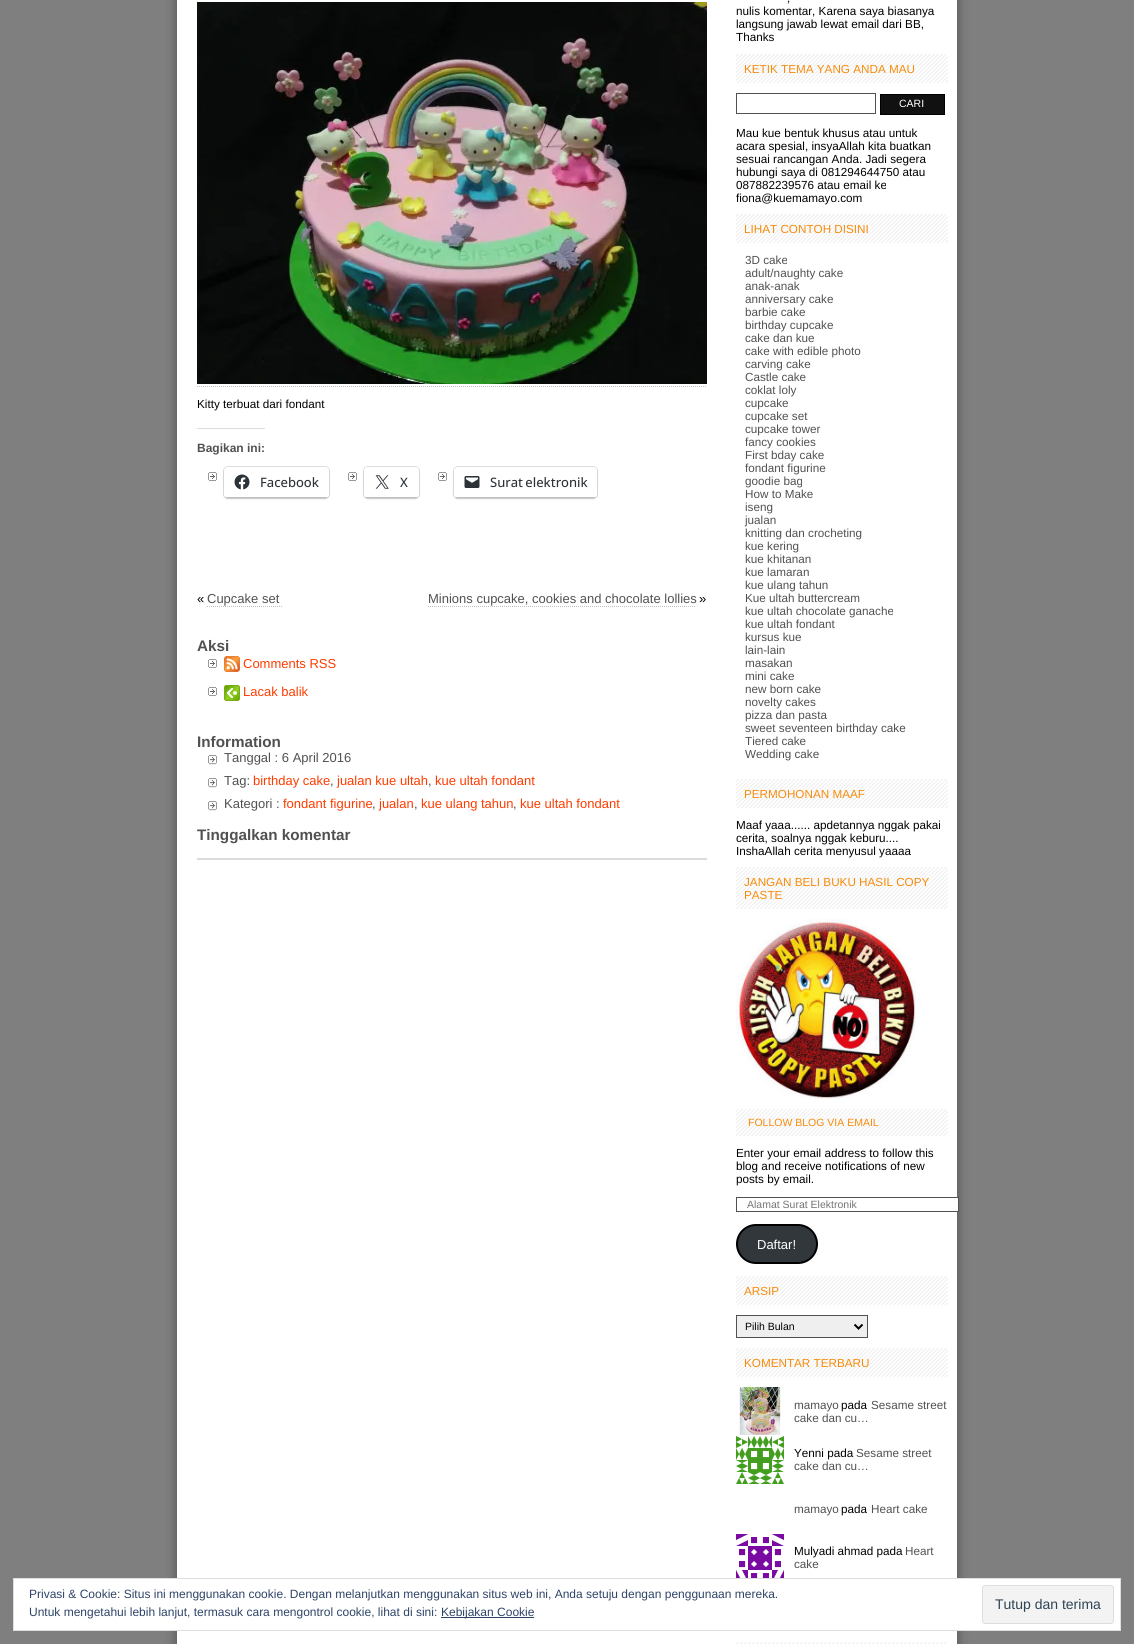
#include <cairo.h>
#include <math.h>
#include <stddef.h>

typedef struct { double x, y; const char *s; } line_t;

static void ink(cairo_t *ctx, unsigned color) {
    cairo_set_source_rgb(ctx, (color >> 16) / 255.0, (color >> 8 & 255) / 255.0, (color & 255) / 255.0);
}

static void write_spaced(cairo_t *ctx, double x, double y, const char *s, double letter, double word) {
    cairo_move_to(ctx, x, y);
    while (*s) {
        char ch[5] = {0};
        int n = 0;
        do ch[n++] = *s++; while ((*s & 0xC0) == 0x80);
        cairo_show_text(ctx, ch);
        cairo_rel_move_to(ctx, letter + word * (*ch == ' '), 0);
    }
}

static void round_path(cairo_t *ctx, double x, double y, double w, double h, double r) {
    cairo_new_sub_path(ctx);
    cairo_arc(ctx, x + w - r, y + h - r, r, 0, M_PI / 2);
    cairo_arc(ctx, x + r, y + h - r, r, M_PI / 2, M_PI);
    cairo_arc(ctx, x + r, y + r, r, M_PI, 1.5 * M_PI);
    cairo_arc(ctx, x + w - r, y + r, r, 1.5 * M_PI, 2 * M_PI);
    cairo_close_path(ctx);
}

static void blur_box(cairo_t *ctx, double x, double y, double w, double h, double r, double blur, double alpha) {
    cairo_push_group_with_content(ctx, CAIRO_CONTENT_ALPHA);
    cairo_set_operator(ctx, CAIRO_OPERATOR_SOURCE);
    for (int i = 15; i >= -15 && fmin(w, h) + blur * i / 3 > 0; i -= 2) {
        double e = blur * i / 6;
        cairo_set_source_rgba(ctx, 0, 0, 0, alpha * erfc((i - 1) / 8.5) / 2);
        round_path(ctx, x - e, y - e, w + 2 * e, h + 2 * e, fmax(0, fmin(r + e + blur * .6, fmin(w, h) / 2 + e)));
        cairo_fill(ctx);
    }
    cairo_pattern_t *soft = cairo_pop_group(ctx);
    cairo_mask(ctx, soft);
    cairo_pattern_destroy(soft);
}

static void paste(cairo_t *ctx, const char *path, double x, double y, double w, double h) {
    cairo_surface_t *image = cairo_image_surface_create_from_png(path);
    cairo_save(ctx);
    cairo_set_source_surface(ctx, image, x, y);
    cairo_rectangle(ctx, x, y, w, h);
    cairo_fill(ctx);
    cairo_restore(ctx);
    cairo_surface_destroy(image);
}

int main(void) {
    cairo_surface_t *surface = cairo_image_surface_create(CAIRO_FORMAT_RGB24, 1134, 1644);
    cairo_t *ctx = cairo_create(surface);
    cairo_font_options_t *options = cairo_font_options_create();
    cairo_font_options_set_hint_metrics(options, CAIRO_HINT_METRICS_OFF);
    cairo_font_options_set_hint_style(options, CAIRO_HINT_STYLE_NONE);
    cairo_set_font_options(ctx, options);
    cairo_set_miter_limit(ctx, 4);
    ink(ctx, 0x7F7F7F);
    cairo_paint(ctx);
    ink(ctx, 0x5A5A5A);
    blur_box(ctx, 175, -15, 784, 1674, 0, 5, 1);
    ink(ctx, 0xFFFFFF);
    cairo_rectangle(ctx, 177, 0, 780, 1644);
    cairo_fill(ctx);
    paste(ctx, "media/1.png", 197, 2, 510, 382);
    cairo_new_path(ctx);
    cairo_move_to(ctx, 197, 386.5);
    cairo_line_to(ctx, 707, 386.5);
    ink(ctx, 0xC0C0C0);
    cairo_set_line_width(ctx, 1);
    cairo_set_dash(ctx, (double[]){1, 1}, 2, 0);
    cairo_stroke(ctx);
    cairo_select_font_face(ctx, "Liberation Sans", CAIRO_FONT_SLANT_NORMAL, CAIRO_FONT_WEIGHT_NORMAL);
    cairo_set_font_size(ctx, 11.7);
    ink(ctx, 0x000000);
    cairo_move_to(ctx, 197, 408);
    cairo_show_text(ctx, "Kitty terbuat dari fondant");
    ink(ctx, 0xDCDCDE);
    cairo_rectangle(ctx, 197, 428, 68, 1);
    cairo_fill(ctx);
    cairo_select_font_face(ctx, "Liberation Sans", CAIRO_FONT_SLANT_NORMAL, CAIRO_FONT_WEIGHT_BOLD);
    cairo_set_font_size(ctx, 12);
    ink(ctx, 0x515151);
    cairo_move_to(ctx, 197, 452);
    cairo_show_text(ctx, "Bagikan ini:");
    paste(ctx, "media/2.png", 208, 472, 9, 9);
    round_path(ctx, 223.5, 466.5, 106, 32, 4.5);
    ink(ctx, 0xE0E0E0);
    cairo_set_dash(ctx, NULL, 0, 0);
    cairo_stroke(ctx);
    ink(ctx, 0x000000);
    blur_box(ctx, 224, 468, 105, 31, 4, 1, 0.12);
    ink(ctx, 0xFFFFFF);
    round_path(ctx, 224, 467, 105, 31, 4);
    cairo_fill(ctx);
    ink(ctx, 0xC0C0C0);
    cairo_rectangle(ctx, 226, 497, 101, 1);
    cairo_fill(ctx);
    paste(ctx, "media/3.png", 234, 474, 16, 16);
    cairo_select_font_face(ctx, "Open Sans Medium", CAIRO_FONT_SLANT_NORMAL, CAIRO_FONT_WEIGHT_NORMAL);
    cairo_set_font_size(ctx, 13);
    ink(ctx, 0x2C3338);
    cairo_move_to(ctx, 260, 487);
    cairo_show_text(ctx, "Facebook");
    paste(ctx, "media/2.png", 348, 472, 9, 9);
    round_path(ctx, 363.5, 466.5, 56, 32, 4.5);
    ink(ctx, 0xE0E0E0);
    cairo_stroke(ctx);
    ink(ctx, 0x000000);
    blur_box(ctx, 364, 468, 55, 31, 4, 1, 0.12);
    ink(ctx, 0xFFFFFF);
    round_path(ctx, 364, 467, 55, 31, 4);
    cairo_fill(ctx);
    ink(ctx, 0xC0C0C0);
    cairo_rectangle(ctx, 366, 497, 51, 1);
    cairo_fill(ctx);
    paste(ctx, "media/4.png", 375, 475, 14, 14);
    ink(ctx, 0x2C3338);
    cairo_move_to(ctx, 400, 487);
    cairo_show_text(ctx, "X");
    paste(ctx, "media/2.png", 438, 472, 9, 9);
    round_path(ctx, 453.5, 466.5, 144, 32, 4.5);
    ink(ctx, 0xE0E0E0);
    cairo_stroke(ctx);
    ink(ctx, 0x000000);
    blur_box(ctx, 454, 468, 143, 31, 4, 1, 0.12);
    ink(ctx, 0xFFFFFF);
    round_path(ctx, 454, 467, 143, 31, 4);
    cairo_fill(ctx);
    ink(ctx, 0xC0C0C0);
    cairo_rectangle(ctx, 456, 497, 139, 1);
    cairo_fill(ctx);
    paste(ctx, "media/5.png", 464, 476, 16, 12);
    ink(ctx, 0x2C3338);
    write_spaced(ctx, 490, 487, "Surat elektronik", 0, -1);
    cairo_select_font_face(ctx, "Liberation Sans", CAIRO_FONT_SLANT_NORMAL, CAIRO_FONT_WEIGHT_NORMAL);
    ink(ctx, 0x000000);
    cairo_move_to(ctx, 197, 603);
    cairo_show_text(ctx, "«");
    ink(ctx, 0x515151);
    cairo_move_to(ctx, 207, 603);
    cairo_show_text(ctx, "Cupcake set");
    cairo_new_path(ctx);
    cairo_move_to(ctx, 207, 606.5);
    cairo_line_to(ctx, 283, 606.5);
    ink(ctx, 0xC0C0C0);
    cairo_set_dash(ctx, (double[]){1, 1}, 2, 0);
    cairo_stroke(ctx);
    ink(ctx, 0x515151);
    cairo_move_to(ctx, 428, 603);
    cairo_show_text(ctx, "Minions cupcake, cookies and chocolate lollies");
    cairo_new_path(ctx);
    cairo_move_to(ctx, 428, 606.5);
    cairo_line_to(ctx, 696, 606.5);
    ink(ctx, 0xC0C0C0);
    cairo_stroke(ctx);
    ink(ctx, 0x000000);
    cairo_move_to(ctx, 699, 603);
    cairo_show_text(ctx, "»");
    cairo_select_font_face(ctx, "Liberation Sans", CAIRO_FONT_SLANT_NORMAL, CAIRO_FONT_WEIGHT_BOLD);
    cairo_set_font_size(ctx, 15.25);
    ink(ctx, 0x515151);
    cairo_move_to(ctx, 197, 651);
    cairo_show_text(ctx, "Aksi");
    paste(ctx, "media/2.png", 208, 659, 9, 9);
    paste(ctx, "media/6.png", 224, 656, 16, 16);
    cairo_select_font_face(ctx, "Liberation Sans", CAIRO_FONT_SLANT_NORMAL, CAIRO_FONT_WEIGHT_NORMAL);
    cairo_set_font_size(ctx, 13);
    ink(ctx, 0xFF3C00);
    cairo_move_to(ctx, 243, 668);
    cairo_show_text(ctx, "Comments RSS");
    paste(ctx, "media/2.png", 208, 687, 9, 9);
    paste(ctx, "media/7.png", 224, 685, 16, 16);
    cairo_move_to(ctx, 243, 696);
    cairo_show_text(ctx, "Lacak balik");
    cairo_select_font_face(ctx, "Liberation Sans", CAIRO_FONT_SLANT_NORMAL, CAIRO_FONT_WEIGHT_BOLD);
    cairo_set_font_size(ctx, 15.25);
    ink(ctx, 0x515151);
    cairo_move_to(ctx, 197, 747);
    cairo_show_text(ctx, "Information");
    paste(ctx, "media/8.png", 208, 755, 9, 10);
    cairo_select_font_face(ctx, "Liberation Sans", CAIRO_FONT_SLANT_NORMAL, CAIRO_FONT_WEIGHT_NORMAL);
    cairo_set_font_size(ctx, 13);
    cairo_move_to(ctx, 224, 762);
    cairo_show_text(ctx, "Tanggal : 6 April 2016");
    paste(ctx, "media/8.png", 208, 778, 9, 10);
    cairo_move_to(ctx, 224, 785);
    cairo_show_text(ctx, "Tag:");
    ink(ctx, 0xFF3C00);
    cairo_move_to(ctx, 253, 785);
    cairo_show_text(ctx, "birthday cake");
    ink(ctx, 0x515151);
    cairo_move_to(ctx, 330, 785);
    cairo_show_text(ctx, ",");
    ink(ctx, 0xFF3C00);
    cairo_move_to(ctx, 337, 785);
    cairo_show_text(ctx, "jualan kue ultah");
    ink(ctx, 0x515151);
    cairo_move_to(ctx, 428, 785);
    cairo_show_text(ctx, ",");
    ink(ctx, 0xFF3C00);
    cairo_move_to(ctx, 435, 785);
    cairo_show_text(ctx, "kue ultah fondant");
    paste(ctx, "media/8.png", 208, 801, 9, 10);
    ink(ctx, 0x515151);
    cairo_move_to(ctx, 224, 808);
    cairo_show_text(ctx, "Kategori :");
    ink(ctx, 0xFF3C00);
    cairo_move_to(ctx, 283, 808);
    cairo_show_text(ctx, "fondant figurine");
    ink(ctx, 0x515151);
    cairo_move_to(ctx, 372, 808);
    cairo_show_text(ctx, ",");
    ink(ctx, 0xFF3C00);
    cairo_move_to(ctx, 379, 808);
    cairo_show_text(ctx, "jualan");
    ink(ctx, 0x515151);
    cairo_move_to(ctx, 414, 808);
    cairo_show_text(ctx, ",");
    ink(ctx, 0xFF3C00);
    cairo_move_to(ctx, 421, 808);
    cairo_show_text(ctx, "kue ulang tahun");
    ink(ctx, 0x515151);
    cairo_move_to(ctx, 513, 808);
    cairo_show_text(ctx, ",");
    ink(ctx, 0xFF3C00);
    cairo_move_to(ctx, 520, 808);
    cairo_show_text(ctx, "kue ultah fondant");
    cairo_select_font_face(ctx, "Liberation Sans", CAIRO_FONT_SLANT_NORMAL, CAIRO_FONT_WEIGHT_BOLD);
    cairo_set_font_size(ctx, 15.25);
    ink(ctx, 0x515151);
    cairo_move_to(ctx, 197, 840);
    cairo_show_text(ctx, "Tinggalkan komentar");
    ink(ctx, 0xDCDCDE);
    cairo_rectangle(ctx, 197, 858, 510, 2);
    cairo_fill(ctx);
    cairo_select_font_face(ctx, "Liberation Sans", CAIRO_FONT_SLANT_NORMAL, CAIRO_FONT_WEIGHT_NORMAL);
    cairo_set_font_size(ctx, 11.7);
    ink(ctx, 0x000000);
    {
        static const line_t items[] = {
            {787, 2, ","},
            {736, 15, "nulis komentar, Karena saya biasanya"},
            {736, 28, "langsung jawab lewat email dari BB,"},
            {736, 41, "Thanks"},
        };
        for (size_t i = 0; i < sizeof items / sizeof *items; i++) {
            cairo_move_to(ctx, items[i].x, items[i].y);
            cairo_show_text(ctx, items[i].s);
        }
    }
    paste(ctx, "media/9.png", 736, 54, 212, 29);
    ink(ctx, 0xF78B0C);
    cairo_move_to(ctx, 744, 73);
    cairo_show_text(ctx, "KETIK TEMA YANG ANDA MAU");
    cairo_rectangle(ctx, 736.5, 93.5, 139, 20);
    ink(ctx, 0x515151);
    cairo_set_dash(ctx, NULL, 0, 0);
    cairo_stroke(ctx);
    ink(ctx, 0x111111);
    cairo_rectangle(ctx, 880.5, 94.5, 64, 20);
    cairo_fill_preserve(ctx);
    ink(ctx, 0x000000);
    cairo_stroke(ctx);
    cairo_set_font_size(ctx, 10.5);
    ink(ctx, 0xFFFFFF);
    cairo_move_to(ctx, 899, 107);
    cairo_show_text(ctx, "CARI");
    cairo_set_font_size(ctx, 11.7);
    ink(ctx, 0x000000);
    {
        static const line_t items[] = {
            {736, 137, "Mau kue bentuk khusus atau untuk"},
            {736, 150, "acara spesial, insyaAllah kita buatkan"},
            {736, 163, "sesuai rancangan Anda. Jadi segera"},
            {736, 176, "hubungi saya di 081294644750 atau"},
            {736, 189, "087882239576 atau email ke"},
            {736, 202, "fiona@kuemamayo.com"},
        };
        for (size_t i = 0; i < sizeof items / sizeof *items; i++) {
            cairo_move_to(ctx, items[i].x, items[i].y);
            cairo_show_text(ctx, items[i].s);
        }
    }
    paste(ctx, "media/9.png", 736, 214, 212, 29);
    ink(ctx, 0xF78B0C);
    cairo_move_to(ctx, 744, 233);
    cairo_show_text(ctx, "LIHAT CONTOH DISINI");
    ink(ctx, 0x515151);
    {
        static const line_t items[] = {
            {745, 264, "3D cake"},
            {745, 277, "adult/naughty cake"},
            {745, 290, "anak-anak"},
            {745, 303, "anniversary cake"},
            {745, 316, "barbie cake"},
            {745, 329, "birthday cupcake"},
            {745, 342, "cake dan kue"},
            {745, 355, "cake with edible photo"},
            {745, 368, "carving cake"},
            {745, 381, "Castle cake"},
            {745, 394, "coklat loly"},
            {745, 407, "cupcake"},
            {745, 420, "cupcake set"},
            {745, 433, "cupcake tower"},
            {745, 446, "fancy cookies"},
            {745, 459, "First bday cake"},
            {745, 472, "fondant figurine"},
            {745, 485, "goodie bag"},
            {745, 498, "How to Make"},
            {745, 511, "iseng"},
            {745, 524, "jualan"},
            {745, 537, "knitting dan crocheting"},
            {745, 550, "kue kering"},
            {745, 563, "kue khitanan"},
            {745, 576, "kue lamaran"},
            {745, 589, "kue ulang tahun"},
            {745, 602, "Kue ultah buttercream"},
            {745, 615, "kue ultah chocolate ganache"},
            {745, 628, "kue ultah fondant"},
            {745, 641, "kursus kue"},
            {745, 654, "lain-lain"},
            {745, 667, "masakan"},
            {745, 680, "mini cake"},
            {745, 693, "new born cake"},
            {745, 706, "novelty cakes"},
            {745, 719, "pizza dan pasta"},
            {745, 732, "sweet seventeen birthday cake"},
            {745, 745, "Tiered cake"},
            {745, 758, "Wedding cake"},
        };
        for (size_t i = 0; i < sizeof items / sizeof *items; i++) {
            cairo_move_to(ctx, items[i].x, items[i].y);
            cairo_show_text(ctx, items[i].s);
        }
    }
    paste(ctx, "media/9.png", 736, 779, 212, 29);
    ink(ctx, 0xF78B0C);
    cairo_move_to(ctx, 744, 798);
    cairo_show_text(ctx, "PERMOHONAN MAAF");
    ink(ctx, 0x000000);
    {
        static const line_t items[] = {
            {736, 829, "Maaf yaaa...... apdetannya nggak pakai"},
            {736, 842, "cerita, soalnya nggak keburu...."},
            {736, 855, "InshaAllah cerita menyusul yaaaa"},
        };
        for (size_t i = 0; i < sizeof items / sizeof *items; i++) {
            cairo_move_to(ctx, items[i].x, items[i].y);
            cairo_show_text(ctx, items[i].s);
        }
    }
    paste(ctx, "media/10.png", 736, 867, 212, 42);
    ink(ctx, 0xF78B0C);
    cairo_move_to(ctx, 744, 886);
    cairo_show_text(ctx, "JANGAN BELI BUKU HASIL COPY");
    cairo_move_to(ctx, 744, 899);
    cairo_show_text(ctx, "PASTE");
    paste(ctx, "media/11.png", 736, 919, 180, 180);
    paste(ctx, "media/12.png", 736, 1109, 212, 27);
    cairo_set_font_size(ctx, 10.5);
    cairo_move_to(ctx, 748, 1126);
    cairo_show_text(ctx, "FOLLOW BLOG VIA EMAIL");
    cairo_set_font_size(ctx, 11.7);
    ink(ctx, 0x000000);
    {
        static const line_t items[] = {
            {736, 1157, "Enter your email address to follow this"},
            {736, 1170, "blog and receive notifications of new"},
            {736, 1183, "posts by email."},
        };
        for (size_t i = 0; i < sizeof items / sizeof *items; i++) {
            cairo_move_to(ctx, items[i].x, items[i].y);
            cairo_show_text(ctx, items[i].s);
        }
    }
    ink(ctx, 0xFFFFFF);
    cairo_rectangle(ctx, 957, 1198, 1, 13);
    cairo_fill(ctx);
    cairo_rectangle(ctx, 736.5, 1197.5, 222, 14);
    ink(ctx, 0x515151);
    cairo_stroke(ctx);
    cairo_set_font_size(ctx, 10.5);
    ink(ctx, 0x757575);
    cairo_move_to(ctx, 747, 1208);
    cairo_show_text(ctx, "Alamat Surat Elektronik");
    ink(ctx, 0x32373C);
    round_path(ctx, 737, 1225, 80, 38, 19);
    cairo_fill_preserve(ctx);
    ink(ctx, 0x000000);
    cairo_set_line_width(ctx, 2);
    cairo_stroke(ctx);
    cairo_set_font_size(ctx, 13);
    ink(ctx, 0xFFFFFF);
    cairo_move_to(ctx, 757, 1249);
    cairo_show_text(ctx, "Daftar!");
    paste(ctx, "media/9.png", 736, 1276, 212, 29);
    cairo_set_font_size(ctx, 11.7);
    ink(ctx, 0xF78B0C);
    cairo_move_to(ctx, 744, 1295);
    cairo_show_text(ctx, "ARSIP");
    ink(ctx, 0xEFEFEF);
    cairo_rectangle(ctx, 736.5, 1315.5, 131, 22);
    cairo_fill_preserve(ctx);
    ink(ctx, 0x515151);
    cairo_set_line_width(ctx, 1);
    cairo_stroke(ctx);
    cairo_new_path(ctx);
    cairo_move_to(ctx, 854.5, 1324.5);
    cairo_line_to(ctx, 858.5, 1328.5);
    cairo_line_to(ctx, 862.5, 1324.5);
    ink(ctx, 0x000000);
    cairo_set_line_width(ctx, 2);
    cairo_stroke(ctx);
    cairo_set_font_size(ctx, 10.5);
    cairo_move_to(ctx, 745, 1330);
    cairo_show_text(ctx, "Pilih Bulan");
    paste(ctx, "media/9.png", 736, 1348, 212, 29);
    cairo_set_font_size(ctx, 11.7);
    ink(ctx, 0xF78B0C);
    cairo_move_to(ctx, 744, 1367);
    cairo_show_text(ctx, "KOMENTAR TERBARU");
    paste(ctx, "media/13.png", 739, 1387, 42, 48);
    ink(ctx, 0x515151);
    cairo_move_to(ctx, 794, 1409);
    cairo_show_text(ctx, "mamayo");
    ink(ctx, 0x000000);
    cairo_move_to(ctx, 841, 1409);
    cairo_show_text(ctx, "pada");
    ink(ctx, 0x515151);
    cairo_move_to(ctx, 871, 1409);
    cairo_show_text(ctx, "Sesame street");
    cairo_move_to(ctx, 794, 1422);
    cairo_show_text(ctx, "cake dan cu…");
    paste(ctx, "media/14.png", 736, 1436, 48, 48);
    ink(ctx, 0x000000);
    cairo_move_to(ctx, 794, 1457);
    cairo_show_text(ctx, "Yenni pada");
    ink(ctx, 0x515151);
    {
        static const line_t items[] = {
            {856, 1457, "Sesame street"},
            {794, 1470, "cake dan cu…"},
            {794, 1513, "mamayo"},
        };
        for (size_t i = 0; i < sizeof items / sizeof *items; i++) {
            cairo_move_to(ctx, items[i].x, items[i].y);
            cairo_show_text(ctx, items[i].s);
        }
    }
    ink(ctx, 0x000000);
    cairo_move_to(ctx, 841, 1513);
    cairo_show_text(ctx, "pada");
    ink(ctx, 0x515151);
    cairo_move_to(ctx, 871, 1513);
    cairo_show_text(ctx, "Heart cake");
    paste(ctx, "media/15.png", 736, 1534, 48, 44);
    ink(ctx, 0x000000);
    cairo_move_to(ctx, 794, 1555);
    cairo_show_text(ctx, "Mulyadi ahmad pada");
    ink(ctx, 0x515151);
    cairo_move_to(ctx, 905, 1555);
    cairo_show_text(ctx, "Heart");
    cairo_move_to(ctx, 794, 1568);
    cairo_show_text(ctx, "cake");
    paste(ctx, "media/16.png", 736, 1642, 211, 2);
    ink(ctx, 0xFFFFFF);
    cairo_rectangle(ctx, 13.5, 1578.5, 1107, 52);
    cairo_fill_preserve(ctx);
    ink(ctx, 0xDEDEDE);
    cairo_set_line_width(ctx, 1);
    cairo_stroke(ctx);
    cairo_set_font_size(ctx, 12);
    ink(ctx, 0x2E4467);
    cairo_move_to(ctx, 29, 1598);
    cairo_show_text(ctx, "Privasi & Cookie: Situs ini menggunakan cookie. Dengan melanjutkan menggunakan situs web ini, Anda setuju dengan penggunaan mereka.");
    cairo_move_to(ctx, 29, 1616);
    cairo_show_text(ctx, "Untuk mengetahui lebih lanjut, termasuk cara mengontrol cookie, lihat di sini:");
    cairo_rectangle(ctx, 441, 1617, 93, 1);
    cairo_fill(ctx);
    cairo_move_to(ctx, 441, 1616);
    cairo_show_text(ctx, "Kebijakan Cookie");
    ink(ctx, 0xF3F3F3);
    round_path(ctx, 982.5, 1585.5, 131, 38, 2.5);
    cairo_fill_preserve(ctx);
    ink(ctx, 0xDEDEDE);
    cairo_stroke(ctx);
    cairo_set_font_size(ctx, 14);
    ink(ctx, 0x2E4453);
    cairo_move_to(ctx, 995, 1609);
    cairo_show_text(ctx, "Tutup dan terima");
    cairo_surface_write_to_png(surface, "image.png");
    cairo_font_options_destroy(options);
    cairo_destroy(ctx);
    cairo_surface_destroy(surface);
    return 0;
}
